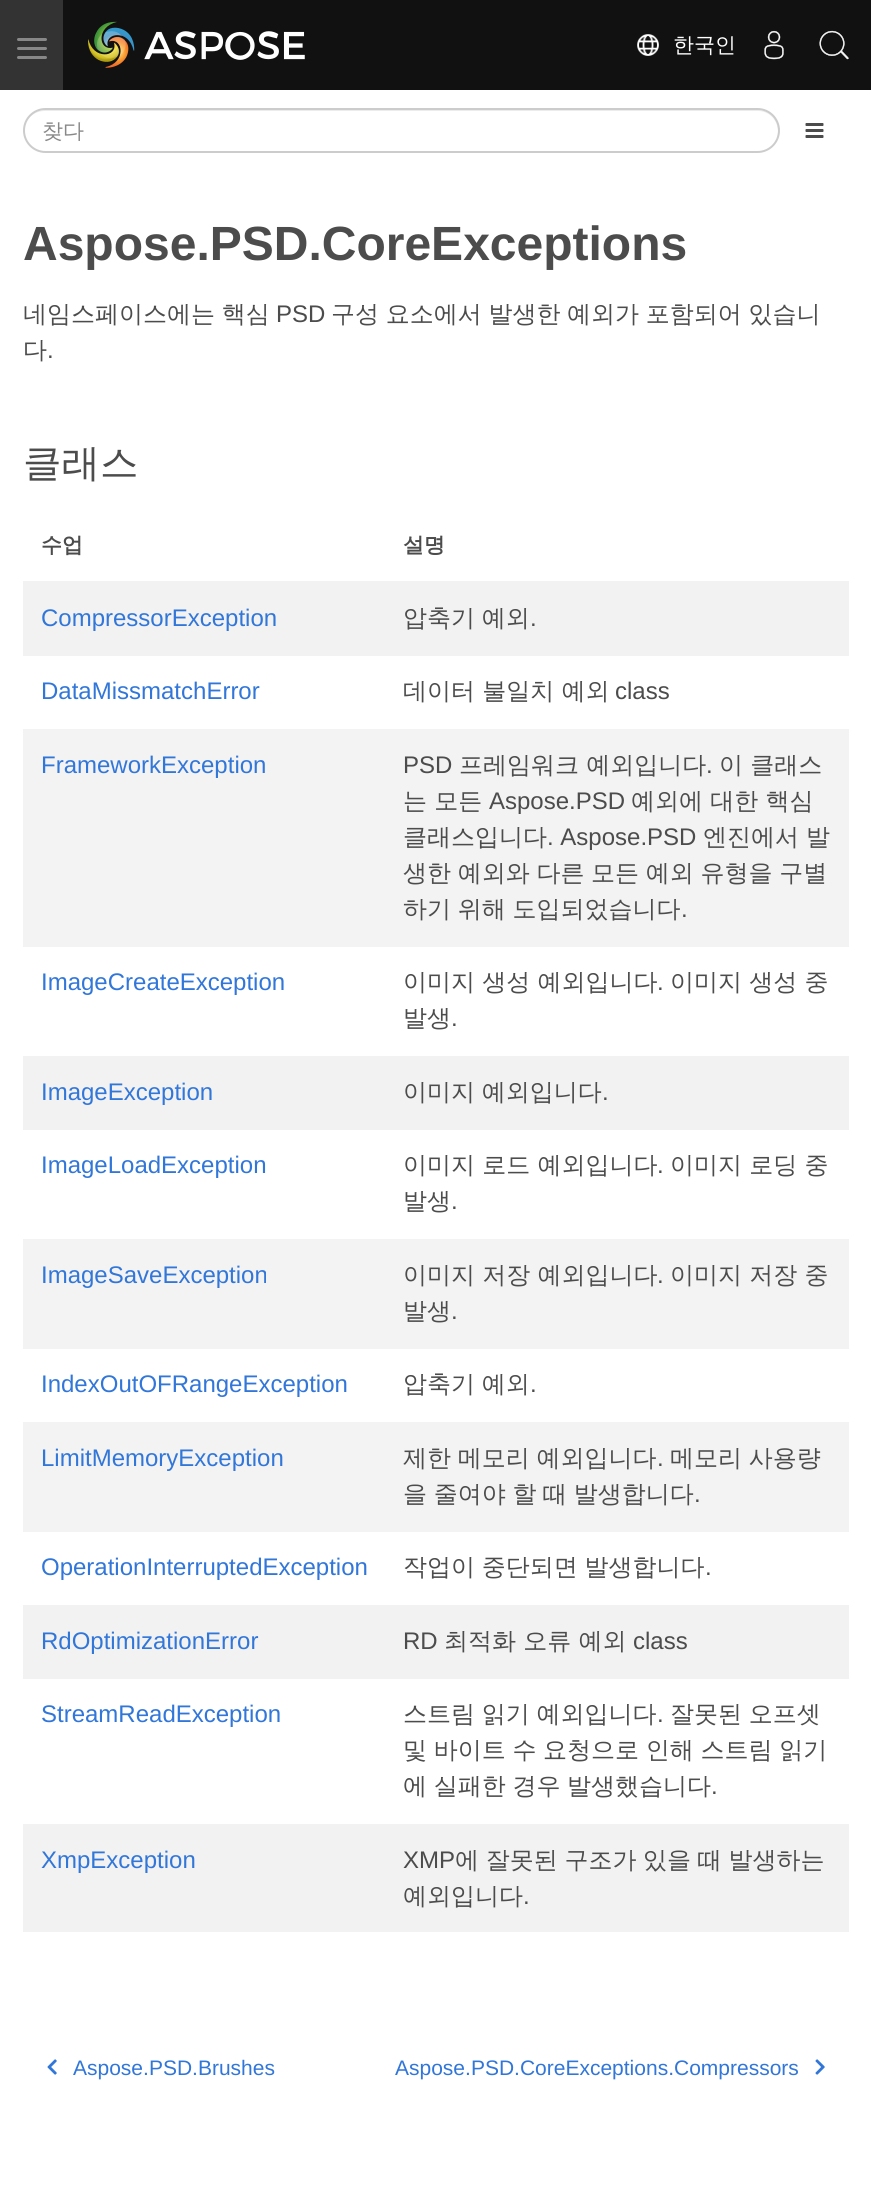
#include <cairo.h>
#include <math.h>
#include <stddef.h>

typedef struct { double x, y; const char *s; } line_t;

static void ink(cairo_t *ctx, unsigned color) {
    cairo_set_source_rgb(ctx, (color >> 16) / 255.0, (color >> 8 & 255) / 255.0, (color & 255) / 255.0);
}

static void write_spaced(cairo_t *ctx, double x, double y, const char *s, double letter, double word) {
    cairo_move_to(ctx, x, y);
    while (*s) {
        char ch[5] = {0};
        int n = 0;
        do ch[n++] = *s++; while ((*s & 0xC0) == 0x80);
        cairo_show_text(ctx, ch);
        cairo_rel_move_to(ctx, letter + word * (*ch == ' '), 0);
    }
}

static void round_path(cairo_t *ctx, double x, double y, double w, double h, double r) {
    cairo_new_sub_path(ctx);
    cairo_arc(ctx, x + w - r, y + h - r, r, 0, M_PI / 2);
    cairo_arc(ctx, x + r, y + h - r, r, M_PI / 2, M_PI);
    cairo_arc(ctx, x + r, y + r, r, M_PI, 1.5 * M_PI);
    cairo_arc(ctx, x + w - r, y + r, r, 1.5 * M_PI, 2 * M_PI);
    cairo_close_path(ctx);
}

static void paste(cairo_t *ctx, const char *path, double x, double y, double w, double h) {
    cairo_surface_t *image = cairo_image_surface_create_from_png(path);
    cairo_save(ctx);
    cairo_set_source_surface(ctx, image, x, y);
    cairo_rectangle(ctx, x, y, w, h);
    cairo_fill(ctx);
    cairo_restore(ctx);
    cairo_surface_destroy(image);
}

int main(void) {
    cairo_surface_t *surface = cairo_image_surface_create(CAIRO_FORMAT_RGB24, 871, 2212);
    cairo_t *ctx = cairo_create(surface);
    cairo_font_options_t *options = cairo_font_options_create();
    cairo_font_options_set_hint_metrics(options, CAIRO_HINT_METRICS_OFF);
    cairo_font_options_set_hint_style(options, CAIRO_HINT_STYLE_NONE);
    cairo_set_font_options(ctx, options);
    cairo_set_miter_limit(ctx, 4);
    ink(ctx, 0xFFFFFF);
    cairo_paint(ctx);
    ink(ctx, 0x111111);
    cairo_rectangle(ctx, 63, 0, 808, 90);
    cairo_fill(ctx);
    ink(ctx, 0x333333);
    cairo_rectangle(ctx, 0, 0, 63, 90);
    cairo_fill(ctx);
    ink(ctx, 0x888888);
    round_path(ctx, 17, 38, 30, 3, 1.5);
    cairo_fill(ctx);
    round_path(ctx, 17, 47, 30, 3, 1.5);
    cairo_fill(ctx);
    round_path(ctx, 17, 56, 30, 3, 1.5);
    cairo_fill(ctx);
    paste(ctx, "media/1.png", 88, 21, 217, 47);
    paste(ctx, "media/2.png", 637, 34, 22, 22);
    cairo_select_font_face(ctx, "WenQuanYi Zen Hei Medium", CAIRO_FONT_SLANT_NORMAL, CAIRO_FONT_WEIGHT_NORMAL);
    cairo_set_font_size(ctx, 21);
    ink(ctx, 0xFFFFFF);
    cairo_move_to(ctx, 673, 52);
    cairo_show_text(ctx, "한국인");
    paste(ctx, "media/3.png", 764, 30, 20, 30);
    paste(ctx, "media/4.png", 819, 30, 30, 30);
    ink(ctx, 0xECECEC);
    cairo_new_path(ctx);
    cairo_move_to(ctx, 45, 111);
    cairo_line_to(ctx, 758, 111);
    cairo_curve_to(ctx, 769, 111, 778, 120, 778, 132);
    cairo_curve_to(ctx, 778, 136, 777, 140, 775, 144);
    cairo_curve_to(ctx, 777, 140, 779, 136, 779, 131);
    cairo_curve_to(ctx, 779, 119, 770, 110, 758, 110);
    cairo_line_to(ctx, 45, 110);
    cairo_curve_to(ctx, 33, 110, 24, 119, 24, 131);
    cairo_curve_to(ctx, 24, 120, 33, 111, 45, 111);
    cairo_close_path(ctx);
    cairo_fill(ctx);
    round_path(ctx, 24, 109, 755, 43, 21.5);
    ink(ctx, 0xCCCCCC);
    cairo_stroke(ctx);
    ink(ctx, 0x888888);
    cairo_move_to(ctx, 42, 138);
    cairo_show_text(ctx, "찾다");
    paste(ctx, "media/5.png", 805, 123, 19, 15);
    cairo_select_font_face(ctx, "Liberation Sans", CAIRO_FONT_SLANT_NORMAL, CAIRO_FONT_WEIGHT_BOLD);
    cairo_set_font_size(ctx, 48);
    ink(ctx, 0x4C4C4C);
    cairo_move_to(ctx, 23, 260);
    cairo_show_text(ctx, "Aspose.PSD.CoreExceptions");
    cairo_select_font_face(ctx, "WenQuanYi Zen Hei Medium", CAIRO_FONT_SLANT_NORMAL, CAIRO_FONT_WEIGHT_NORMAL);
    cairo_set_font_size(ctx, 24);
    write_spaced(ctx, 23, 322, "네임스페이스에는 핵심", 0, -0.5);
    cairo_select_font_face(ctx, "Liberation Sans", CAIRO_FONT_SLANT_NORMAL, CAIRO_FONT_WEIGHT_NORMAL);
    cairo_move_to(ctx, 276, 322);
    cairo_show_text(ctx, "PSD");
    cairo_select_font_face(ctx, "WenQuanYi Zen Hei Medium", CAIRO_FONT_SLANT_NORMAL, CAIRO_FONT_WEIGHT_NORMAL);
    write_spaced(ctx, 331, 322, "구성 요소에서 발생한 예외가 포함되어 있습니", 0, -0.5);
    cairo_move_to(ctx, 23, 358);
    cairo_show_text(ctx, "다");
    cairo_select_font_face(ctx, "Liberation Sans", CAIRO_FONT_SLANT_NORMAL, CAIRO_FONT_WEIGHT_NORMAL);
    cairo_move_to(ctx, 47, 358);
    cairo_show_text(ctx, ".");
    cairo_select_font_face(ctx, "WenQuanYi Zen Hei Medium", CAIRO_FONT_SLANT_NORMAL, CAIRO_FONT_WEIGHT_NORMAL);
    cairo_set_font_size(ctx, 38.5);
    cairo_move_to(ctx, 23, 476);
    cairo_show_text(ctx, "클래스");
    cairo_select_font_face(ctx, "WenQuanYi Zen Hei", CAIRO_FONT_SLANT_NORMAL, CAIRO_FONT_WEIGHT_BOLD);
    cairo_set_font_size(ctx, 21);
    cairo_move_to(ctx, 41, 552);
    cairo_show_text(ctx, "수업");
    cairo_move_to(ctx, 403, 552);
    cairo_show_text(ctx, "설명");
    ink(ctx, 0xF2F2F2);
    cairo_rectangle(ctx, 23, 581, 826, 75);
    cairo_fill(ctx);
    cairo_select_font_face(ctx, "Liberation Sans", CAIRO_FONT_SLANT_NORMAL, CAIRO_FONT_WEIGHT_NORMAL);
    cairo_set_font_size(ctx, 24);
    ink(ctx, 0x3176D9);
    cairo_move_to(ctx, 41, 626);
    cairo_show_text(ctx, "CompressorException");
    cairo_select_font_face(ctx, "WenQuanYi Zen Hei Medium", CAIRO_FONT_SLANT_NORMAL, CAIRO_FONT_WEIGHT_NORMAL);
    ink(ctx, 0x4C4C4C);
    write_spaced(ctx, 403, 626, "압축기 예외", 0, -0.5);
    cairo_select_font_face(ctx, "Liberation Sans", CAIRO_FONT_SLANT_NORMAL, CAIRO_FONT_WEIGHT_NORMAL);
    cairo_move_to(ctx, 530, 626);
    cairo_show_text(ctx, ".");
    ink(ctx, 0x3176D9);
    cairo_move_to(ctx, 41, 699);
    cairo_show_text(ctx, "DataMissmatchError");
    cairo_select_font_face(ctx, "WenQuanYi Zen Hei Medium", CAIRO_FONT_SLANT_NORMAL, CAIRO_FONT_WEIGHT_NORMAL);
    ink(ctx, 0x4C4C4C);
    cairo_move_to(ctx, 403, 699);
    cairo_show_text(ctx, "데이터 불일치 예외");
    cairo_select_font_face(ctx, "Liberation Sans", CAIRO_FONT_SLANT_NORMAL, CAIRO_FONT_WEIGHT_NORMAL);
    cairo_move_to(ctx, 615, 699);
    cairo_show_text(ctx, "class");
    ink(ctx, 0xF3F3F3);
    cairo_rectangle(ctx, 23, 729, 826, 218);
    cairo_fill(ctx);
    ink(ctx, 0x3176D9);
    cairo_move_to(ctx, 41, 773);
    cairo_show_text(ctx, "FrameworkException");
    ink(ctx, 0x4C4C4C);
    cairo_move_to(ctx, 403, 773);
    cairo_show_text(ctx, "PSD");
    cairo_select_font_face(ctx, "WenQuanYi Zen Hei Medium", CAIRO_FONT_SLANT_NORMAL, CAIRO_FONT_WEIGHT_NORMAL);
    cairo_move_to(ctx, 459, 773);
    cairo_show_text(ctx, "프레임워크 예외입니다");
    cairo_select_font_face(ctx, "Liberation Sans", CAIRO_FONT_SLANT_NORMAL, CAIRO_FONT_WEIGHT_NORMAL);
    cairo_move_to(ctx, 706, 773);
    cairo_show_text(ctx, ".");
    cairo_select_font_face(ctx, "WenQuanYi Zen Hei Medium", CAIRO_FONT_SLANT_NORMAL, CAIRO_FONT_WEIGHT_NORMAL);
    cairo_move_to(ctx, 719, 773);
    cairo_show_text(ctx, "이 클래스");
    cairo_move_to(ctx, 403, 809);
    cairo_show_text(ctx, "는 모든");
    cairo_select_font_face(ctx, "Liberation Sans", CAIRO_FONT_SLANT_NORMAL, CAIRO_FONT_WEIGHT_NORMAL);
    cairo_move_to(ctx, 489, 809);
    cairo_show_text(ctx, "Aspose.PSD");
    cairo_select_font_face(ctx, "WenQuanYi Zen Hei Medium", CAIRO_FONT_SLANT_NORMAL, CAIRO_FONT_WEIGHT_NORMAL);
    cairo_move_to(ctx, 631, 809);
    cairo_show_text(ctx, "예외에 대한 핵심");
    cairo_move_to(ctx, 403, 845);
    cairo_show_text(ctx, "클래스입니다");
    cairo_select_font_face(ctx, "Liberation Sans", CAIRO_FONT_SLANT_NORMAL, CAIRO_FONT_WEIGHT_NORMAL);
    cairo_move_to(ctx, 547, 845);
    cairo_show_text(ctx, ". Aspose.PSD");
    cairo_select_font_face(ctx, "WenQuanYi Zen Hei Medium", CAIRO_FONT_SLANT_NORMAL, CAIRO_FONT_WEIGHT_NORMAL);
    cairo_move_to(ctx, 703, 845);
    cairo_show_text(ctx, "엔진에서");
    cairo_move_to(ctx, 806, 845);
    cairo_show_text(ctx, "발");
    write_spaced(ctx, 403, 881, "생한 예외와 다른 모든 예외 유형을 구별", 0, -0.5);
    write_spaced(ctx, 403, 917, "하기 위해 도입되었습니다", 0, -0.5);
    cairo_select_font_face(ctx, "Liberation Sans", CAIRO_FONT_SLANT_NORMAL, CAIRO_FONT_WEIGHT_NORMAL);
    cairo_move_to(ctx, 681, 917);
    cairo_show_text(ctx, ".");
    ink(ctx, 0x3176D9);
    cairo_move_to(ctx, 41, 990);
    cairo_show_text(ctx, "ImageCreateException");
    cairo_select_font_face(ctx, "WenQuanYi Zen Hei Medium", CAIRO_FONT_SLANT_NORMAL, CAIRO_FONT_WEIGHT_NORMAL);
    ink(ctx, 0x4C4C4C);
    cairo_move_to(ctx, 403, 990);
    cairo_show_text(ctx, "이미지 생성 예외입니다");
    cairo_select_font_face(ctx, "Liberation Sans", CAIRO_FONT_SLANT_NORMAL, CAIRO_FONT_WEIGHT_NORMAL);
    cairo_move_to(ctx, 657, 990);
    cairo_show_text(ctx, ".");
    cairo_select_font_face(ctx, "WenQuanYi Zen Hei Medium", CAIRO_FONT_SLANT_NORMAL, CAIRO_FONT_WEIGHT_NORMAL);
    cairo_move_to(ctx, 670, 990);
    cairo_show_text(ctx, "이미지 생성 중");
    cairo_move_to(ctx, 403, 1026);
    cairo_show_text(ctx, "발생");
    cairo_select_font_face(ctx, "Liberation Sans", CAIRO_FONT_SLANT_NORMAL, CAIRO_FONT_WEIGHT_NORMAL);
    cairo_move_to(ctx, 451, 1026);
    cairo_show_text(ctx, ".");
    ink(ctx, 0xF2F2F2);
    cairo_rectangle(ctx, 23, 1056, 826, 74);
    cairo_fill(ctx);
    ink(ctx, 0x3176D9);
    cairo_move_to(ctx, 41, 1100);
    cairo_show_text(ctx, "ImageException");
    cairo_select_font_face(ctx, "WenQuanYi Zen Hei Medium", CAIRO_FONT_SLANT_NORMAL, CAIRO_FONT_WEIGHT_NORMAL);
    ink(ctx, 0x4C4C4C);
    write_spaced(ctx, 403, 1100, "이미지 예외입니다", 0, -0.5);
    cairo_select_font_face(ctx, "Liberation Sans", CAIRO_FONT_SLANT_NORMAL, CAIRO_FONT_WEIGHT_NORMAL);
    cairo_move_to(ctx, 602, 1100);
    cairo_show_text(ctx, ".");
    ink(ctx, 0x3176D9);
    cairo_move_to(ctx, 41, 1173);
    cairo_show_text(ctx, "ImageLoadException");
    cairo_select_font_face(ctx, "WenQuanYi Zen Hei Medium", CAIRO_FONT_SLANT_NORMAL, CAIRO_FONT_WEIGHT_NORMAL);
    ink(ctx, 0x4C4C4C);
    cairo_move_to(ctx, 403, 1173);
    cairo_show_text(ctx, "이미지 로드 예외입니다");
    cairo_select_font_face(ctx, "Liberation Sans", CAIRO_FONT_SLANT_NORMAL, CAIRO_FONT_WEIGHT_NORMAL);
    cairo_move_to(ctx, 657, 1173);
    cairo_show_text(ctx, ".");
    cairo_select_font_face(ctx, "WenQuanYi Zen Hei Medium", CAIRO_FONT_SLANT_NORMAL, CAIRO_FONT_WEIGHT_NORMAL);
    cairo_move_to(ctx, 670, 1173);
    cairo_show_text(ctx, "이미지 로딩 중");
    cairo_move_to(ctx, 403, 1209);
    cairo_show_text(ctx, "발생");
    cairo_select_font_face(ctx, "Liberation Sans", CAIRO_FONT_SLANT_NORMAL, CAIRO_FONT_WEIGHT_NORMAL);
    cairo_move_to(ctx, 451, 1209);
    cairo_show_text(ctx, ".");
    ink(ctx, 0xF3F3F3);
    cairo_rectangle(ctx, 23, 1239, 826, 110);
    cairo_fill(ctx);
    ink(ctx, 0x3176D9);
    cairo_move_to(ctx, 41, 1283);
    cairo_show_text(ctx, "ImageSaveException");
    cairo_select_font_face(ctx, "WenQuanYi Zen Hei Medium", CAIRO_FONT_SLANT_NORMAL, CAIRO_FONT_WEIGHT_NORMAL);
    ink(ctx, 0x4C4C4C);
    cairo_move_to(ctx, 403, 1283);
    cairo_show_text(ctx, "이미지 저장 예외입니다");
    cairo_select_font_face(ctx, "Liberation Sans", CAIRO_FONT_SLANT_NORMAL, CAIRO_FONT_WEIGHT_NORMAL);
    cairo_move_to(ctx, 657, 1283);
    cairo_show_text(ctx, ".");
    cairo_select_font_face(ctx, "WenQuanYi Zen Hei Medium", CAIRO_FONT_SLANT_NORMAL, CAIRO_FONT_WEIGHT_NORMAL);
    cairo_move_to(ctx, 670, 1283);
    cairo_show_text(ctx, "이미지 저장 중");
    cairo_move_to(ctx, 403, 1319);
    cairo_show_text(ctx, "발생");
    cairo_select_font_face(ctx, "Liberation Sans", CAIRO_FONT_SLANT_NORMAL, CAIRO_FONT_WEIGHT_NORMAL);
    cairo_move_to(ctx, 451, 1319);
    cairo_show_text(ctx, ".");
    ink(ctx, 0x3176D9);
    cairo_move_to(ctx, 41, 1392);
    cairo_show_text(ctx, "IndexOutOFRangeException");
    cairo_select_font_face(ctx, "WenQuanYi Zen Hei Medium", CAIRO_FONT_SLANT_NORMAL, CAIRO_FONT_WEIGHT_NORMAL);
    ink(ctx, 0x4C4C4C);
    write_spaced(ctx, 403, 1392, "압축기 예외", 0, -0.5);
    cairo_select_font_face(ctx, "Liberation Sans", CAIRO_FONT_SLANT_NORMAL, CAIRO_FONT_WEIGHT_NORMAL);
    cairo_move_to(ctx, 530, 1392);
    cairo_show_text(ctx, ".");
    ink(ctx, 0xF3F3F3);
    cairo_rectangle(ctx, 23, 1422, 826, 110);
    cairo_fill(ctx);
    ink(ctx, 0x3176D9);
    cairo_move_to(ctx, 41, 1466);
    cairo_show_text(ctx, "LimitMemoryException");
    cairo_select_font_face(ctx, "WenQuanYi Zen Hei Medium", CAIRO_FONT_SLANT_NORMAL, CAIRO_FONT_WEIGHT_NORMAL);
    ink(ctx, 0x4C4C4C);
    write_spaced(ctx, 403, 1466, "제한 메모리 예외입니다", 0, -0.5);
    cairo_select_font_face(ctx, "Liberation Sans", CAIRO_FONT_SLANT_NORMAL, CAIRO_FONT_WEIGHT_NORMAL);
    cairo_move_to(ctx, 657, 1466);
    cairo_show_text(ctx, ".");
    cairo_select_font_face(ctx, "WenQuanYi Zen Hei Medium", CAIRO_FONT_SLANT_NORMAL, CAIRO_FONT_WEIGHT_NORMAL);
    write_spaced(ctx, 670, 1466, "메모리 사용량", 0, -0.5);
    write_spaced(ctx, 403, 1502, "을 줄여야 할 때 발생합니다", 0, -0.5);
    cairo_select_font_face(ctx, "Liberation Sans", CAIRO_FONT_SLANT_NORMAL, CAIRO_FONT_WEIGHT_NORMAL);
    cairo_move_to(ctx, 694, 1502);
    cairo_show_text(ctx, ".");
    ink(ctx, 0x3176D9);
    cairo_move_to(ctx, 41, 1575);
    cairo_show_text(ctx, "OperationInterruptedException");
    cairo_select_font_face(ctx, "WenQuanYi Zen Hei Medium", CAIRO_FONT_SLANT_NORMAL, CAIRO_FONT_WEIGHT_NORMAL);
    ink(ctx, 0x4C4C4C);
    write_spaced(ctx, 403, 1575, "작업이 중단되면 발생합니다", 0, -0.5);
    cairo_select_font_face(ctx, "Liberation Sans", CAIRO_FONT_SLANT_NORMAL, CAIRO_FONT_WEIGHT_NORMAL);
    cairo_move_to(ctx, 705, 1575);
    cairo_show_text(ctx, ".");
    ink(ctx, 0xF2F2F2);
    cairo_rectangle(ctx, 23, 1605, 826, 74);
    cairo_fill(ctx);
    ink(ctx, 0x3176D9);
    cairo_move_to(ctx, 41, 1649);
    cairo_show_text(ctx, "RdOptimizationError");
    ink(ctx, 0x4C4C4C);
    cairo_move_to(ctx, 403, 1649);
    cairo_show_text(ctx, "RD");
    cairo_select_font_face(ctx, "WenQuanYi Zen Hei Medium", CAIRO_FONT_SLANT_NORMAL, CAIRO_FONT_WEIGHT_NORMAL);
    cairo_move_to(ctx, 444, 1649);
    cairo_show_text(ctx, "최적화 오류 예외");
    cairo_select_font_face(ctx, "Liberation Sans", CAIRO_FONT_SLANT_NORMAL, CAIRO_FONT_WEIGHT_NORMAL);
    cairo_move_to(ctx, 633, 1649);
    cairo_show_text(ctx, "class");
    ink(ctx, 0x3176D9);
    cairo_move_to(ctx, 41, 1722);
    cairo_show_text(ctx, "StreamReadException");
    cairo_select_font_face(ctx, "WenQuanYi Zen Hei Medium", CAIRO_FONT_SLANT_NORMAL, CAIRO_FONT_WEIGHT_NORMAL);
    ink(ctx, 0x4C4C4C);
    write_spaced(ctx, 403, 1722, "스트림 읽기 예외입니다", 0, -0.5);
    cairo_select_font_face(ctx, "Liberation Sans", CAIRO_FONT_SLANT_NORMAL, CAIRO_FONT_WEIGHT_NORMAL);
    cairo_move_to(ctx, 657, 1722);
    cairo_show_text(ctx, ".");
    cairo_select_font_face(ctx, "WenQuanYi Zen Hei Medium", CAIRO_FONT_SLANT_NORMAL, CAIRO_FONT_WEIGHT_NORMAL);
    {
        static const line_t items[] = {
            {670, 1722, "잘못된 오프셋"},
            {403, 1758, "및 바이트 수 요청으로 인해 스트림 읽기"},
            {403, 1794, "에 실패한 경우 발생했습니다"},
        };
        for (size_t i = 0; i < sizeof items / sizeof *items; i++) {
            write_spaced(ctx, items[i].x, items[i].y, items[i].s, 0, -0.5);
        }
    }
    cairo_select_font_face(ctx, "Liberation Sans", CAIRO_FONT_SLANT_NORMAL, CAIRO_FONT_WEIGHT_NORMAL);
    cairo_move_to(ctx, 711, 1794);
    cairo_show_text(ctx, ".");
    ink(ctx, 0xF2F2F2);
    cairo_rectangle(ctx, 23, 1824, 826, 108);
    cairo_fill(ctx);
    ink(ctx, 0x3176D9);
    cairo_move_to(ctx, 41, 1868);
    cairo_show_text(ctx, "XmpException");
    ink(ctx, 0x4C4C4C);
    cairo_move_to(ctx, 403, 1868);
    cairo_show_text(ctx, "XMP");
    cairo_select_font_face(ctx, "WenQuanYi Zen Hei Medium", CAIRO_FONT_SLANT_NORMAL, CAIRO_FONT_WEIGHT_NORMAL);
    write_spaced(ctx, 455, 1868, "에 잘못된 구조가 있을 때 발생하는", 0, -0.5);
    cairo_move_to(ctx, 403, 1904);
    cairo_show_text(ctx, "예외입니다");
    cairo_select_font_face(ctx, "Liberation Sans", CAIRO_FONT_SLANT_NORMAL, CAIRO_FONT_WEIGHT_NORMAL);
    cairo_move_to(ctx, 523, 1904);
    cairo_show_text(ctx, ".");
    paste(ctx, "media/6.png", 47, 2059, 10, 16);
    cairo_set_font_size(ctx, 21);
    ink(ctx, 0x3176D9);
    cairo_move_to(ctx, 73, 2075);
    cairo_show_text(ctx, "Aspose.PSD.Brushes");
    cairo_move_to(ctx, 395, 2075);
    cairo_show_text(ctx, "Aspose.PSD.CoreExceptions.Compressors");
    paste(ctx, "media/7.png", 815, 2059, 10, 16);
    cairo_surface_write_to_png(surface, "image.png");
    cairo_font_options_destroy(options);
    cairo_destroy(ctx);
    cairo_surface_destroy(surface);
    return 0;
}
